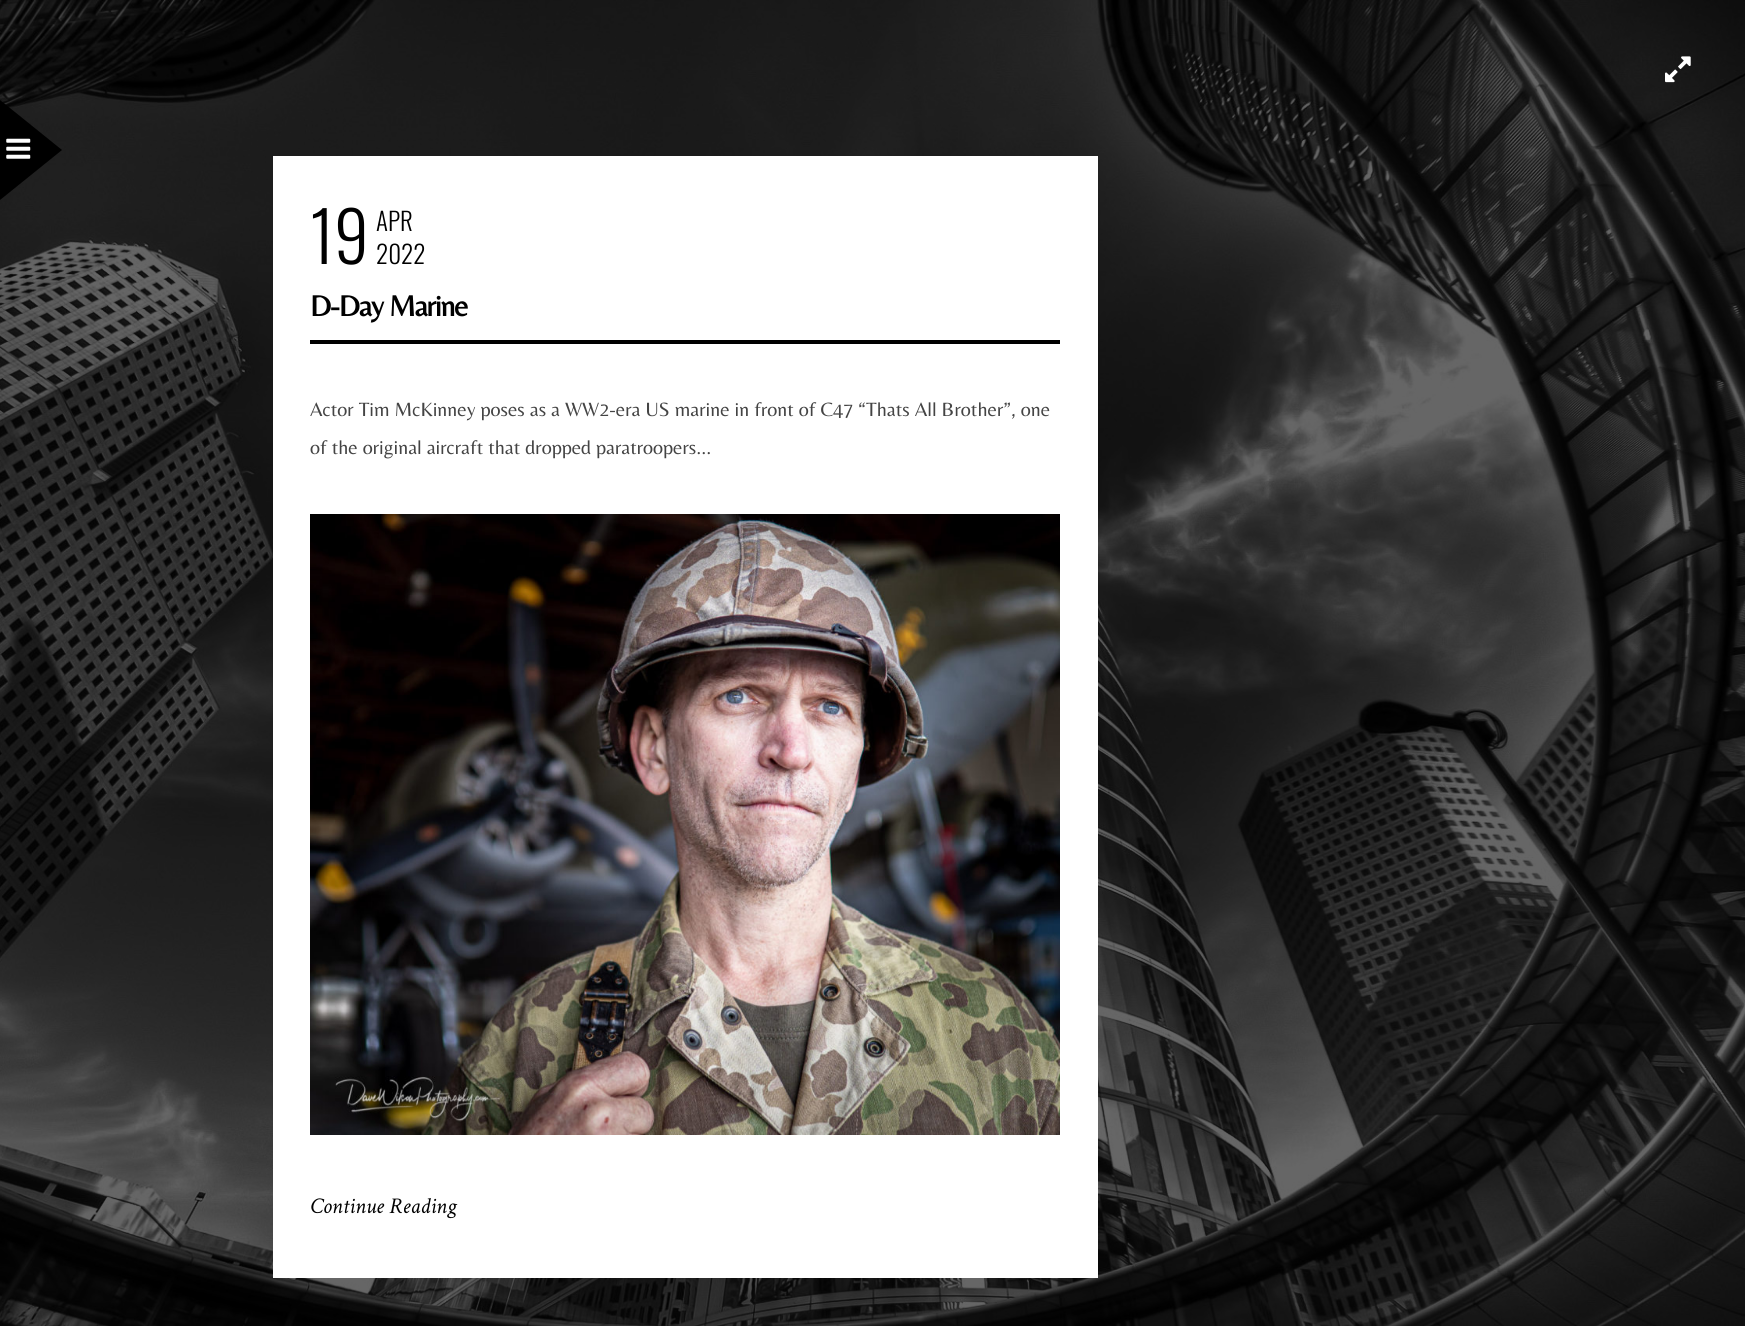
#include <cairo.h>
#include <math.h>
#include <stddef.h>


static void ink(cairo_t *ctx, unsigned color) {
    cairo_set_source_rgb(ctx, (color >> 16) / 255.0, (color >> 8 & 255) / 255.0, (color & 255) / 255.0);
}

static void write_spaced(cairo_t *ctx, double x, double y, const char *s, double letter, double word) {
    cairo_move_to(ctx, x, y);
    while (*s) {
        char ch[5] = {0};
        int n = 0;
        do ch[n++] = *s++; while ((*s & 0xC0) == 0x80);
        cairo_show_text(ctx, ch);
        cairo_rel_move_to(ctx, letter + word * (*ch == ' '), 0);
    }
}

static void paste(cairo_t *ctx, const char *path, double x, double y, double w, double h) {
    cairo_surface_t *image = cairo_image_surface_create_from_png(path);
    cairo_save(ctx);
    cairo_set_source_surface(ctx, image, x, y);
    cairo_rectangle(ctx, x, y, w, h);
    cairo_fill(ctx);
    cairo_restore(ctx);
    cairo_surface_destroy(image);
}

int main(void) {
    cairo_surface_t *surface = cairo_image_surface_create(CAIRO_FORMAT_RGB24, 1745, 1326);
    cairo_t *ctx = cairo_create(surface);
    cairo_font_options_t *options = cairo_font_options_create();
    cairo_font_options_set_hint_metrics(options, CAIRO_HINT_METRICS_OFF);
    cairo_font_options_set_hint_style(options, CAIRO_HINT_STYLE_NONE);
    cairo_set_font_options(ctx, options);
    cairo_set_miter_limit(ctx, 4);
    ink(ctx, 0x000000);
    cairo_paint(ctx);
    paste(ctx, "media/1.png", 0, 0, 1745, 1326);
    ink(ctx, 0x000000);
    cairo_new_path(ctx);
    cairo_move_to(ctx, 0, 200);
    cairo_line_to(ctx, 0, 100);
    cairo_line_to(ctx, 62, 150);
    cairo_close_path(ctx);
    cairo_fill(ctx);
    paste(ctx, "media/2.png", 6, 138, 25, 21);
    paste(ctx, "media/3.png", 1665, 56, 26, 27);
    ink(ctx, 0xFFFFFF);
    cairo_rectangle(ctx, 273, 156, 825, 1122);
    cairo_fill(ctx);
    cairo_select_font_face(ctx, "Oswald Light", CAIRO_FONT_SLANT_NORMAL, CAIRO_FONT_WEIGHT_NORMAL);
    cairo_set_font_size(ctx, 69);
    ink(ctx, 0x000000);
    cairo_move_to(ctx, 310, 264);
    cairo_show_text(ctx, "19");
    cairo_set_font_size(ctx, 25);
    cairo_move_to(ctx, 376, 231);
    cairo_show_text(ctx, "APR");
    cairo_move_to(ctx, 376, 264);
    cairo_show_text(ctx, "2022");
    cairo_select_font_face(ctx, "Belleza", CAIRO_FONT_SLANT_NORMAL, CAIRO_FONT_WEIGHT_BOLD);
    cairo_set_font_size(ctx, 30);
    write_spaced(ctx, 310, 316, "D-Day Marine", -1.25, 0);
    cairo_rectangle(ctx, 310, 340, 750, 4);
    cairo_fill(ctx);
    cairo_select_font_face(ctx, "Belleza", CAIRO_FONT_SLANT_NORMAL, CAIRO_FONT_WEIGHT_NORMAL);
    cairo_set_font_size(ctx, 20);
    ink(ctx, 0x444444);
    cairo_move_to(ctx, 310, 416);
    cairo_show_text(ctx, "Actor Tim McKinney poses as a WW2-era US marine in front of C47 “Thats All Brother”, one");
    cairo_move_to(ctx, 310, 454);
    cairo_show_text(ctx, "of the original aircraft that dropped paratroopers...");
    paste(ctx, "media/4.png", 310, 514, 750, 621);
    cairo_select_font_face(ctx, "Crimson Text", CAIRO_FONT_SLANT_ITALIC, CAIRO_FONT_WEIGHT_NORMAL);
    cairo_set_font_size(ctx, 22.5);
    ink(ctx, 0x000000);
    cairo_move_to(ctx, 310, 1213);
    cairo_show_text(ctx, "Continue Reading");
    cairo_surface_write_to_png(surface, "image.png");
    cairo_font_options_destroy(options);
    cairo_destroy(ctx);
    cairo_surface_destroy(surface);
    return 0;
}
